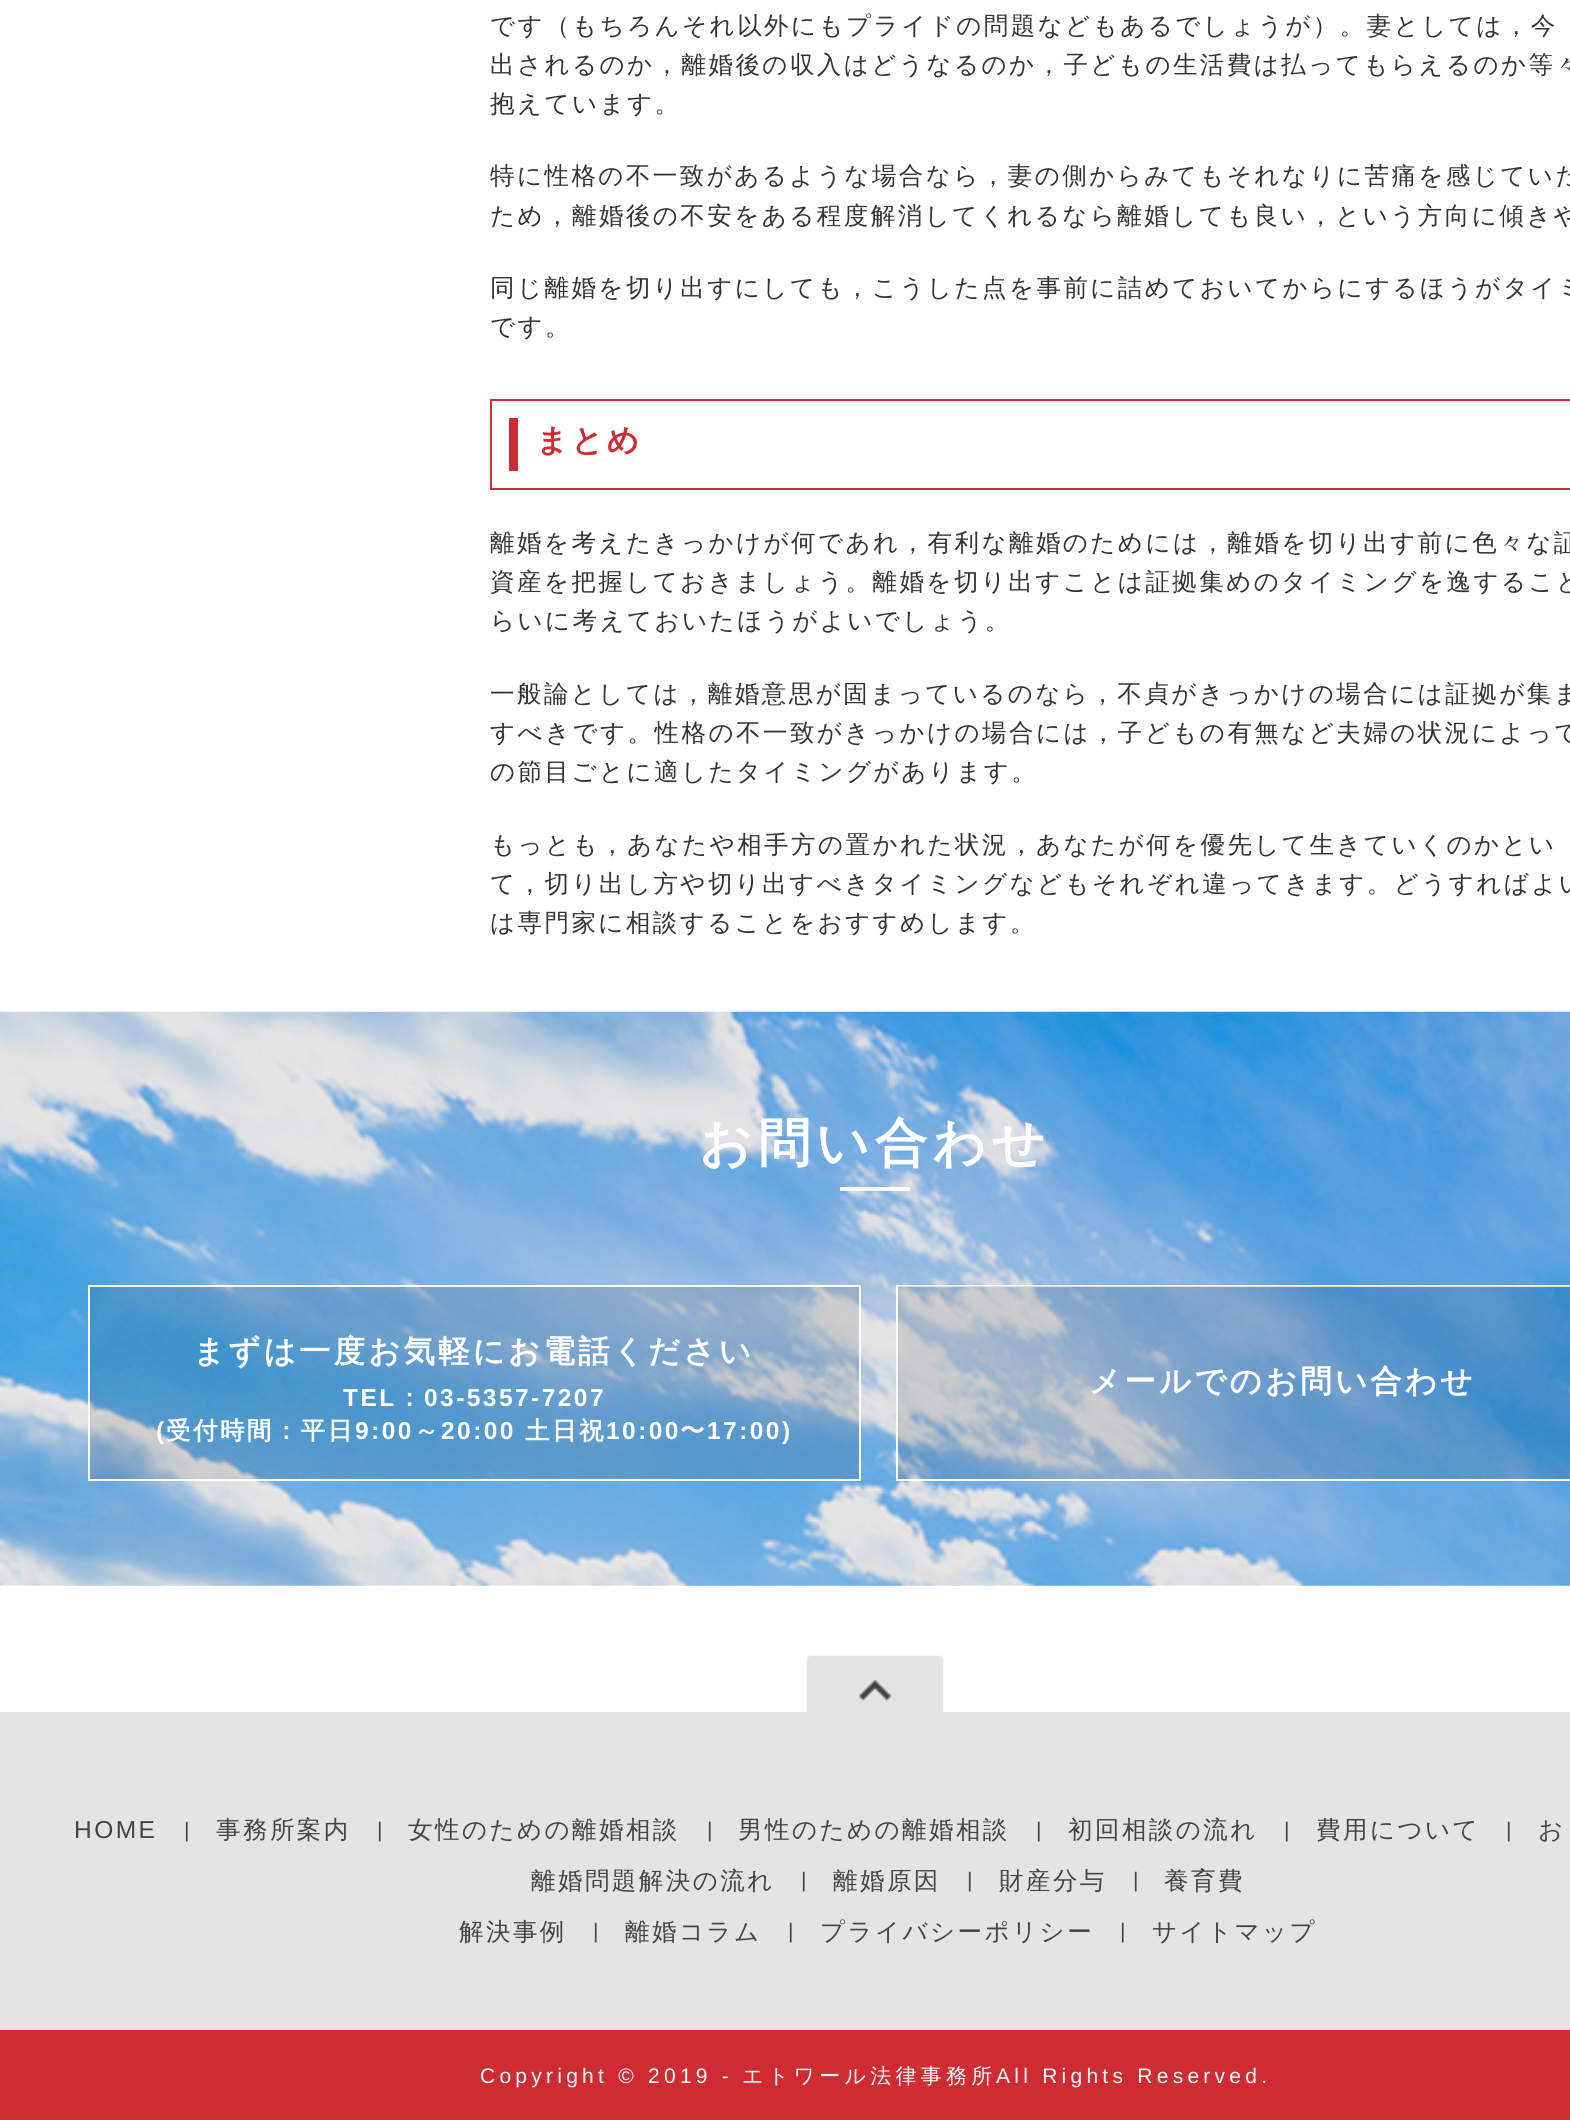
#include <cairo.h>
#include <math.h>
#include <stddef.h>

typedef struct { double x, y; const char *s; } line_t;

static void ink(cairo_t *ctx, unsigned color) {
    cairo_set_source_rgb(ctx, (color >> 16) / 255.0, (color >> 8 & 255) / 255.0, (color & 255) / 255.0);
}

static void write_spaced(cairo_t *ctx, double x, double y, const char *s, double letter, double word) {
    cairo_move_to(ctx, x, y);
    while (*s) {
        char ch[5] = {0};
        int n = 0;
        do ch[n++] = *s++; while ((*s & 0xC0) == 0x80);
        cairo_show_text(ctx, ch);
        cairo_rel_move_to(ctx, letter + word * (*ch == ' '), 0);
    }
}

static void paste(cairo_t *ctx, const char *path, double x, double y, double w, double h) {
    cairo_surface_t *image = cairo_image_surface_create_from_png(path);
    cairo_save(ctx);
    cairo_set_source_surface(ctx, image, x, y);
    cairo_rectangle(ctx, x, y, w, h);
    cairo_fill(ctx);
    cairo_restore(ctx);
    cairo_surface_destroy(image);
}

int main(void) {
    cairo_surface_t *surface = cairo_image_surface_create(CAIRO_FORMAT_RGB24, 1570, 2120);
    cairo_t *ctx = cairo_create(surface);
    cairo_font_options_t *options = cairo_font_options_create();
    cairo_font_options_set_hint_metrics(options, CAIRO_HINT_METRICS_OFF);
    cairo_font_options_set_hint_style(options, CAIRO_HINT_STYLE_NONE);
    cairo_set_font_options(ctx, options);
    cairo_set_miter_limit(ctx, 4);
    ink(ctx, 0xFFFFFF);
    cairo_paint(ctx);
    cairo_select_font_face(ctx, "WenQuanYi Zen Hei Medium", CAIRO_FONT_SLANT_NORMAL, CAIRO_FONT_WEIGHT_NORMAL);
    cairo_set_font_size(ctx, 24.5);
    ink(ctx, 0x333333);
    {
        static const line_t items[] = {
            {490, 34, "です（もちろんそれ以外にもプライドの問題などもあるでしょうが）。妻としては，今"},
            {490, 73, "出されるのか，離婚後の収入はどうなるのか，子どもの生活費は払ってもらえるのか等々"},
            {490, 112, "抱えています。"},
            {490, 184, "特に性格の不一致があるような場合なら，妻の側からみてもそれなりに苦痛を感じていた"},
            {490, 224, "ため，離婚後の不安をある程度解消してくれるなら離婚しても良い，という方向に傾きや"},
            {490, 296, "同じ離婚を切り出すにしても，こうした点を事前に詰めておいてからにするほうがタイミ"},
            {490, 335, "です。"},
        };
        for (size_t i = 0; i < sizeof items / sizeof *items; i++) {
            write_spaced(ctx, items[i].x, items[i].y, items[i].s, 2.45, 0);
        }
    }
    cairo_rectangle(ctx, 491, 400, 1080, 89);
    ink(ctx, 0xCE2B33);
    cairo_stroke(ctx);
    cairo_rectangle(ctx, 509, 418, 9, 53);
    cairo_fill(ctx);
    cairo_select_font_face(ctx, "WenQuanYi Zen Hei", CAIRO_FONT_SLANT_NORMAL, CAIRO_FONT_WEIGHT_BOLD);
    cairo_set_font_size(ctx, 31.5);
    write_spaced(ctx, 536, 451, "まとめ", 3.1, 0);
    cairo_select_font_face(ctx, "WenQuanYi Zen Hei Medium", CAIRO_FONT_SLANT_NORMAL, CAIRO_FONT_WEIGHT_NORMAL);
    cairo_set_font_size(ctx, 24.5);
    ink(ctx, 0x333333);
    {
        static const line_t items[] = {
            {490, 551, "離婚を考えたきっかけが何であれ，有利な離婚のためには，離婚を切り出す前に色々な証"},
            {490, 590, "資産を把握しておきましょう。離婚を切り出すことは証拠集めのタイミングを逸すること"},
            {490, 629, "らいに考えておいたほうがよいでしょう。"},
            {490, 702, "一般論としては，離婚意思が固まっているのなら，不貞がきっかけの場合には証拠が集ま"},
            {490, 741, "すべきです。性格の不一致がきっかけの場合には，子どもの有無など夫婦の状況によって"},
            {490, 780, "の節目ごとに適したタイミングがあります。"},
            {490, 853, "もっとも，あなたや相手方の置かれた状況，あなたが何を優先して生きていくのかとい"},
            {490, 892, "て，切り出し方や切り出すべきタイミングなどもそれぞれ違ってきます。どうすればよい"},
            {490, 931, "は専門家に相談することをおすすめします。"},
        };
        for (size_t i = 0; i < sizeof items / sizeof *items; i++) {
            write_spaced(ctx, items[i].x, items[i].y, items[i].s, 2.45, 0);
        }
    }
    paste(ctx, "media/1.png", 0, 1011, 1570, 575);
    cairo_select_font_face(ctx, "WenQuanYi Zen Hei", CAIRO_FONT_SLANT_NORMAL, CAIRO_FONT_WEIGHT_BOLD);
    cairo_set_font_size(ctx, 52.5);
    ink(ctx, 0xFFFFFF);
    write_spaced(ctx, 699, 1161, "お問い合わせ", 5.25, 0);
    cairo_rectangle(ctx, 840, 1187, 70, 4);
    cairo_fill(ctx);
    cairo_set_source_rgba(ctx, 0, 0, 0, 0.1);
    cairo_rectangle(ctx, 89, 1286, 771, 194);
    cairo_fill_preserve(ctx);
    ink(ctx, 0xFFFFFF);
    cairo_stroke(ctx);
    cairo_set_font_size(ctx, 31.5);
    write_spaced(ctx, 193, 1362, "まずは一度お気軽にお電話ください", 3.1, 0);
    cairo_select_font_face(ctx, "Liberation Sans", CAIRO_FONT_SLANT_NORMAL, CAIRO_FONT_WEIGHT_BOLD);
    cairo_set_font_size(ctx, 24.5);
    write_spaced(ctx, 343, 1406, "TEL", 2.45, 0);
    cairo_select_font_face(ctx, "WenQuanYi Zen Hei", CAIRO_FONT_SLANT_NORMAL, CAIRO_FONT_WEIGHT_BOLD);
    write_spaced(ctx, 397, 1406, "：", 2.45, 0);
    cairo_select_font_face(ctx, "Liberation Sans", CAIRO_FONT_SLANT_NORMAL, CAIRO_FONT_WEIGHT_BOLD);
    write_spaced(ctx, 424, 1406, "03-5357-7207", 2.45, 0);
    write_spaced(ctx, 156, 1439, "(", 2.45, 0);
    cairo_select_font_face(ctx, "WenQuanYi Zen Hei", CAIRO_FONT_SLANT_NORMAL, CAIRO_FONT_WEIGHT_BOLD);
    write_spaced(ctx, 166, 1439, "受付時間：平日", 2.45, 0);
    cairo_select_font_face(ctx, "Liberation Sans", CAIRO_FONT_SLANT_NORMAL, CAIRO_FONT_WEIGHT_BOLD);
    write_spaced(ctx, 355, 1439, "9:00", 2.45, 0);
    cairo_select_font_face(ctx, "WenQuanYi Zen Hei", CAIRO_FONT_SLANT_NORMAL, CAIRO_FONT_WEIGHT_BOLD);
    write_spaced(ctx, 414, 1439, "～", 2.45, 0);
    cairo_select_font_face(ctx, "Liberation Sans", CAIRO_FONT_SLANT_NORMAL, CAIRO_FONT_WEIGHT_BOLD);
    write_spaced(ctx, 441, 1439, "20:00", 2.45, 0);
    cairo_select_font_face(ctx, "WenQuanYi Zen Hei", CAIRO_FONT_SLANT_NORMAL, CAIRO_FONT_WEIGHT_BOLD);
    write_spaced(ctx, 525, 1439, "土日祝", 2.45, 0);
    cairo_select_font_face(ctx, "Liberation Sans", CAIRO_FONT_SLANT_NORMAL, CAIRO_FONT_WEIGHT_BOLD);
    write_spaced(ctx, 606, 1439, "10:00", 2.45, 0);
    cairo_select_font_face(ctx, "WenQuanYi Zen Hei", CAIRO_FONT_SLANT_NORMAL, CAIRO_FONT_WEIGHT_BOLD);
    write_spaced(ctx, 680, 1439, "〜", 2.45, 0);
    cairo_select_font_face(ctx, "Liberation Sans", CAIRO_FONT_SLANT_NORMAL, CAIRO_FONT_WEIGHT_BOLD);
    write_spaced(ctx, 707, 1439, "17:00)", 2.45, 0);
    cairo_rectangle(ctx, 897, 1286, 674, 194);
    cairo_stroke(ctx);
    cairo_set_source_rgba(ctx, 0, 0, 0, 0.1);
    cairo_rectangle(ctx, 898, 1286, 672, 193);
    cairo_fill(ctx);
    cairo_select_font_face(ctx, "WenQuanYi Zen Hei", CAIRO_FONT_SLANT_NORMAL, CAIRO_FONT_WEIGHT_BOLD);
    cairo_set_font_size(ctx, 31.5);
    ink(ctx, 0xFFFFFF);
    write_spaced(ctx, 1089, 1392, "メールでのお問い合わせ", 3.1, 0);
    paste(ctx, "media/2.png", 806, 1655, 138, 57);
    ink(ctx, 0xE4E4E4);
    cairo_rectangle(ctx, 0, 1712, 1570, 318);
    cairo_fill(ctx);
    cairo_select_font_face(ctx, "Liberation Sans", CAIRO_FONT_SLANT_NORMAL, CAIRO_FONT_WEIGHT_NORMAL);
    cairo_set_font_size(ctx, 24.5);
    ink(ctx, 0x444444);
    write_spaced(ctx, 74, 1838, "HOME", 2.45, 0);
    cairo_set_font_size(ctx, 21);
    cairo_move_to(ctx, 184, 1837);
    cairo_show_text(ctx, "|");
    cairo_select_font_face(ctx, "WenQuanYi Zen Hei Medium", CAIRO_FONT_SLANT_NORMAL, CAIRO_FONT_WEIGHT_NORMAL);
    cairo_set_font_size(ctx, 24.5);
    write_spaced(ctx, 216, 1838, "事務所案内", 2.45, 0);
    cairo_select_font_face(ctx, "Liberation Sans", CAIRO_FONT_SLANT_NORMAL, CAIRO_FONT_WEIGHT_NORMAL);
    cairo_set_font_size(ctx, 21);
    cairo_move_to(ctx, 377, 1837);
    cairo_show_text(ctx, "|");
    cairo_select_font_face(ctx, "WenQuanYi Zen Hei Medium", CAIRO_FONT_SLANT_NORMAL, CAIRO_FONT_WEIGHT_NORMAL);
    cairo_set_font_size(ctx, 24.5);
    write_spaced(ctx, 408, 1838, "女性のための離婚相談", 2.45, 0);
    cairo_select_font_face(ctx, "Liberation Sans", CAIRO_FONT_SLANT_NORMAL, CAIRO_FONT_WEIGHT_NORMAL);
    cairo_set_font_size(ctx, 21);
    cairo_move_to(ctx, 707, 1837);
    cairo_show_text(ctx, "|");
    cairo_select_font_face(ctx, "WenQuanYi Zen Hei Medium", CAIRO_FONT_SLANT_NORMAL, CAIRO_FONT_WEIGHT_NORMAL);
    cairo_set_font_size(ctx, 24.5);
    write_spaced(ctx, 738, 1838, "男性のための離婚相談", 2.45, 0);
    cairo_select_font_face(ctx, "Liberation Sans", CAIRO_FONT_SLANT_NORMAL, CAIRO_FONT_WEIGHT_NORMAL);
    cairo_set_font_size(ctx, 21);
    cairo_move_to(ctx, 1036, 1837);
    cairo_show_text(ctx, "|");
    cairo_select_font_face(ctx, "WenQuanYi Zen Hei Medium", CAIRO_FONT_SLANT_NORMAL, CAIRO_FONT_WEIGHT_NORMAL);
    cairo_set_font_size(ctx, 24.5);
    write_spaced(ctx, 1068, 1838, "初回相談の流れ", 2.45, 0);
    cairo_select_font_face(ctx, "Liberation Sans", CAIRO_FONT_SLANT_NORMAL, CAIRO_FONT_WEIGHT_NORMAL);
    cairo_set_font_size(ctx, 21);
    cairo_move_to(ctx, 1284, 1837);
    cairo_show_text(ctx, "|");
    cairo_select_font_face(ctx, "WenQuanYi Zen Hei Medium", CAIRO_FONT_SLANT_NORMAL, CAIRO_FONT_WEIGHT_NORMAL);
    cairo_set_font_size(ctx, 24.5);
    write_spaced(ctx, 1316, 1838, "費用について", 2.45, 0);
    cairo_select_font_face(ctx, "Liberation Sans", CAIRO_FONT_SLANT_NORMAL, CAIRO_FONT_WEIGHT_NORMAL);
    cairo_set_font_size(ctx, 21);
    cairo_move_to(ctx, 1506, 1837);
    cairo_show_text(ctx, "|");
    cairo_select_font_face(ctx, "WenQuanYi Zen Hei Medium", CAIRO_FONT_SLANT_NORMAL, CAIRO_FONT_WEIGHT_NORMAL);
    cairo_set_font_size(ctx, 24.5);
    write_spaced(ctx, 1538, 1838, "お", 2.45, 0);
    write_spaced(ctx, 531, 1889, "離婚問題解決の流れ", 2.45, 0);
    cairo_select_font_face(ctx, "Liberation Sans", CAIRO_FONT_SLANT_NORMAL, CAIRO_FONT_WEIGHT_NORMAL);
    cairo_set_font_size(ctx, 21);
    cairo_move_to(ctx, 801, 1887);
    cairo_show_text(ctx, "|");
    cairo_select_font_face(ctx, "WenQuanYi Zen Hei Medium", CAIRO_FONT_SLANT_NORMAL, CAIRO_FONT_WEIGHT_NORMAL);
    cairo_set_font_size(ctx, 24.5);
    write_spaced(ctx, 833, 1889, "離婚原因", 2.45, 0);
    cairo_select_font_face(ctx, "Liberation Sans", CAIRO_FONT_SLANT_NORMAL, CAIRO_FONT_WEIGHT_NORMAL);
    cairo_set_font_size(ctx, 21);
    cairo_move_to(ctx, 967, 1887);
    cairo_show_text(ctx, "|");
    cairo_select_font_face(ctx, "WenQuanYi Zen Hei Medium", CAIRO_FONT_SLANT_NORMAL, CAIRO_FONT_WEIGHT_NORMAL);
    cairo_set_font_size(ctx, 24.5);
    write_spaced(ctx, 999, 1889, "財産分与", 2.45, 0);
    cairo_select_font_face(ctx, "Liberation Sans", CAIRO_FONT_SLANT_NORMAL, CAIRO_FONT_WEIGHT_NORMAL);
    cairo_set_font_size(ctx, 21);
    cairo_move_to(ctx, 1133, 1887);
    cairo_show_text(ctx, "|");
    cairo_select_font_face(ctx, "WenQuanYi Zen Hei Medium", CAIRO_FONT_SLANT_NORMAL, CAIRO_FONT_WEIGHT_NORMAL);
    cairo_set_font_size(ctx, 24.5);
    write_spaced(ctx, 1164, 1889, "養育費", 2.45, 0);
    write_spaced(ctx, 459, 1940, "解決事例", 2.45, 0);
    cairo_select_font_face(ctx, "Liberation Sans", CAIRO_FONT_SLANT_NORMAL, CAIRO_FONT_WEIGHT_NORMAL);
    cairo_set_font_size(ctx, 21);
    cairo_move_to(ctx, 593, 1938);
    cairo_show_text(ctx, "|");
    cairo_select_font_face(ctx, "WenQuanYi Zen Hei Medium", CAIRO_FONT_SLANT_NORMAL, CAIRO_FONT_WEIGHT_NORMAL);
    cairo_set_font_size(ctx, 24.5);
    write_spaced(ctx, 625, 1940, "離婚コラム", 2.45, 0);
    cairo_select_font_face(ctx, "Liberation Sans", CAIRO_FONT_SLANT_NORMAL, CAIRO_FONT_WEIGHT_NORMAL);
    cairo_set_font_size(ctx, 21);
    cairo_move_to(ctx, 788, 1938);
    cairo_show_text(ctx, "|");
    cairo_select_font_face(ctx, "WenQuanYi Zen Hei Medium", CAIRO_FONT_SLANT_NORMAL, CAIRO_FONT_WEIGHT_NORMAL);
    cairo_set_font_size(ctx, 24.5);
    write_spaced(ctx, 820, 1940, "プライバシーポリシー", 2.45, 0);
    cairo_select_font_face(ctx, "Liberation Sans", CAIRO_FONT_SLANT_NORMAL, CAIRO_FONT_WEIGHT_NORMAL);
    cairo_set_font_size(ctx, 21);
    cairo_move_to(ctx, 1120, 1938);
    cairo_show_text(ctx, "|");
    cairo_select_font_face(ctx, "WenQuanYi Zen Hei Medium", CAIRO_FONT_SLANT_NORMAL, CAIRO_FONT_WEIGHT_NORMAL);
    cairo_set_font_size(ctx, 24.5);
    write_spaced(ctx, 1152, 1940, "サイトマップ", 2.45, 0);
    ink(ctx, 0xCE2B33);
    cairo_rectangle(ctx, 0, 2030, 1570, 90);
    cairo_fill(ctx);
    cairo_select_font_face(ctx, "Liberation Sans", CAIRO_FONT_SLANT_NORMAL, CAIRO_FONT_WEIGHT_NORMAL);
    cairo_set_font_size(ctx, 21);
    ink(ctx, 0xFFFFFF);
    write_spaced(ctx, 480, 2083, "Copyright © 2019 -", 4.25, 0);
    cairo_select_font_face(ctx, "WenQuanYi Zen Hei Medium", CAIRO_FONT_SLANT_NORMAL, CAIRO_FONT_WEIGHT_NORMAL);
    write_spaced(ctx, 742, 2083, "エトワール法律事務所", 4.25, 0);
    cairo_select_font_face(ctx, "Liberation Sans", CAIRO_FONT_SLANT_NORMAL, CAIRO_FONT_WEIGHT_NORMAL);
    write_spaced(ctx, 996, 2083, "All Rights Reserved.", 4.25, 0);
    cairo_surface_write_to_png(surface, "image.png");
    cairo_font_options_destroy(options);
    cairo_destroy(ctx);
    cairo_surface_destroy(surface);
    return 0;
}
